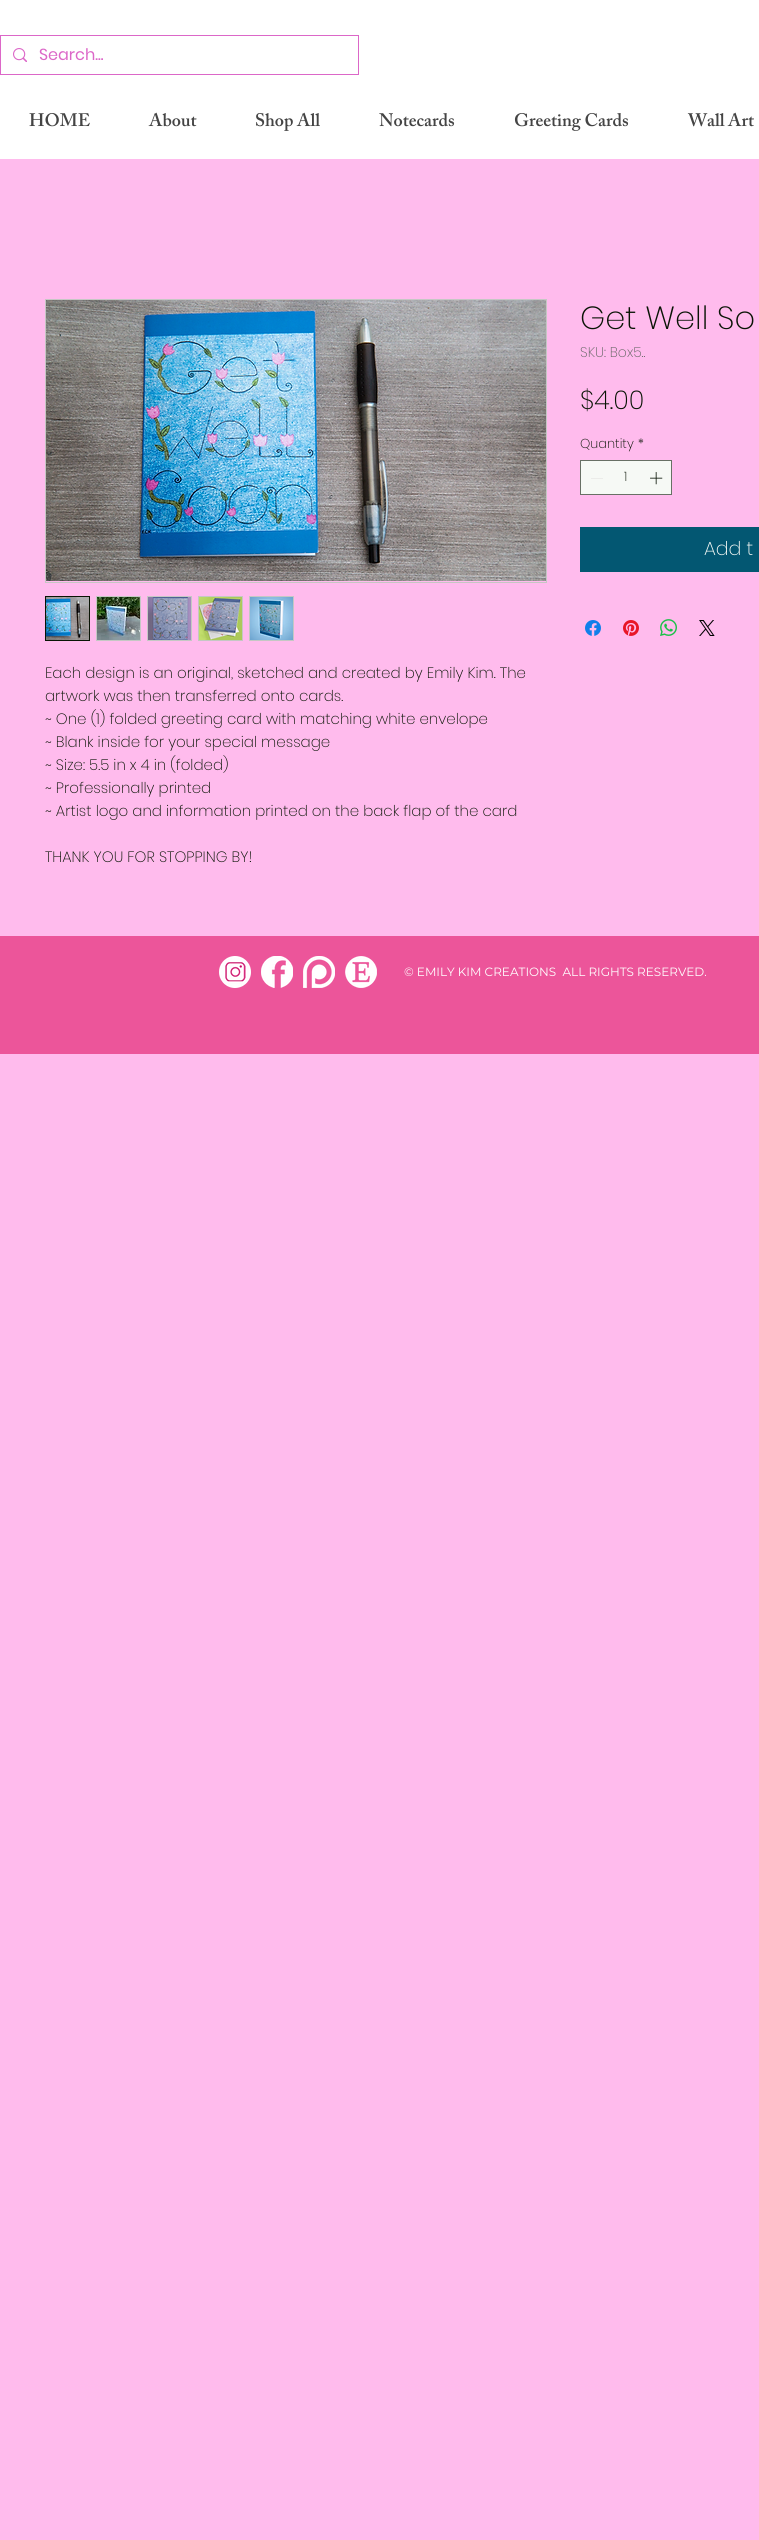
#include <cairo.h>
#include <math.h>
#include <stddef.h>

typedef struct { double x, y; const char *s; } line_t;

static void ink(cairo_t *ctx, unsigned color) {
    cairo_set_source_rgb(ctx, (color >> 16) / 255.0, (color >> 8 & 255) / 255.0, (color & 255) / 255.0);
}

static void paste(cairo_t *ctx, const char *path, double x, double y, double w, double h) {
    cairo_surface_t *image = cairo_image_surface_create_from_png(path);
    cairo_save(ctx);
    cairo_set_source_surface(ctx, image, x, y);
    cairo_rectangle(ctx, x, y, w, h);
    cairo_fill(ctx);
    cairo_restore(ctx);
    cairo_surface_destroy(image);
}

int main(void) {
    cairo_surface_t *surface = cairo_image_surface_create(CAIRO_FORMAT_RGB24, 759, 2540);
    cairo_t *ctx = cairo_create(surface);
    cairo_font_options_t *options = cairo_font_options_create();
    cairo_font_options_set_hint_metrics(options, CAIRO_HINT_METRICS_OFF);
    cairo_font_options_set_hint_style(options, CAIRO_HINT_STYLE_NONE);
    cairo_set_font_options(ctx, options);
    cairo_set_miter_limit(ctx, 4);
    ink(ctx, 0xFFBBED);
    cairo_paint(ctx);
    ink(ctx, 0xFFFFFF);
    cairo_rectangle(ctx, 0, 0, 759, 159);
    cairo_fill(ctx);
    cairo_rectangle(ctx, 0.5, 35.5, 358, 39);
    ink(ctx, 0xDC67C8);
    cairo_set_line_width(ctx, 1);
    cairo_stroke(ctx);
    paste(ctx, "media/1.png", 13, 48, 14, 14);
    cairo_select_font_face(ctx, "Poppins", CAIRO_FONT_SLANT_NORMAL, CAIRO_FONT_WEIGHT_NORMAL);
    cairo_set_font_size(ctx, 16);
    cairo_move_to(ctx, 39, 60);
    cairo_show_text(ctx, "Search...");
    cairo_select_font_face(ctx, "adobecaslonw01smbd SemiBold", CAIRO_FONT_SLANT_NORMAL, CAIRO_FONT_WEIGHT_NORMAL);
    cairo_set_font_size(ctx, 18);
    ink(ctx, 0x444444);
    {
        static const line_t items[] = {
            {29, 126, "HOME"},
            {149, 126, "About"},
            {255, 126, "Shop All"},
            {379, 126, "Notecards"},
            {514, 126, "Greeting Cards"},
            {688, 126, "Wall Art"},
        };
        for (size_t i = 0; i < sizeof items / sizeof *items; i++) {
            cairo_move_to(ctx, items[i].x, items[i].y);
            cairo_show_text(ctx, items[i].s);
        }
    }
    cairo_select_font_face(ctx, "Poppins ExtraLight", CAIRO_FONT_SLANT_NORMAL, CAIRO_FONT_WEIGHT_NORMAL);
    cairo_set_font_size(ctx, 32);
    ink(ctx, 0x091405);
    cairo_move_to(ctx, 580, 329);
    cairo_show_text(ctx, "Get Well So");
    cairo_set_font_size(ctx, 14);
    ink(ctx, 0x626462);
    cairo_move_to(ctx, 580, 357);
    cairo_show_text(ctx, "SKU: Box5..");
    cairo_set_font_size(ctx, 26);
    ink(ctx, 0x091405);
    cairo_move_to(ctx, 580, 409);
    cairo_show_text(ctx, "$4.00");
    cairo_set_font_size(ctx, 13);
    cairo_move_to(ctx, 580, 448);
    cairo_show_text(ctx, "Quantity");
    cairo_move_to(ctx, 638, 448);
    cairo_show_text(ctx, "*");
    ink(ctx, 0xF6F9F5);
    cairo_rectangle(ctx, 580.5, 460.5, 91, 34);
    cairo_fill_preserve(ctx);
    ink(ctx, 0x687065);
    cairo_stroke(ctx);
    ink(ctx, 0xDFE0DE);
    cairo_set_fill_rule(ctx, CAIRO_FILL_RULE_EVEN_ODD);
    cairo_new_path(ctx);
    cairo_move_to(ctx, 603, 478);
    cairo_line_to(ctx, 603, 478.5);
    cairo_line_to(ctx, 591, 478.5);
    cairo_line_to(ctx, 591, 478);
    cairo_close_path(ctx);
    cairo_fill(ctx);
    ink(ctx, 0x091405);
    cairo_move_to(ctx, 624, 481);
    cairo_show_text(ctx, "1");
    paste(ctx, "media/2.png", 650, 472, 13, 13);
    ink(ctx, 0x035772);
    cairo_rectangle(ctx, 580, 527, 179, 45);
    cairo_fill(ctx);
    cairo_set_font_size(ctx, 19);
    ink(ctx, 0xF6F9F5);
    cairo_move_to(ctx, 704, 555);
    cairo_show_text(ctx, "Add t");
    paste(ctx, "media/3.png", 585, 620, 16, 16);
    paste(ctx, "media/4.png", 623, 620, 16, 16);
    paste(ctx, "media/5.png", 660, 619, 17, 17);
    paste(ctx, "media/6.png", 699, 620, 16, 16);
    cairo_rectangle(ctx, 45.5, 299.5, 501, 283);
    ink(ctx, 0xC5C7C4);
    cairo_stroke(ctx);
    paste(ctx, "media/7.png", 46, 300, 500, 281);
    cairo_rectangle(ctx, 45.5, 596.5, 44, 44);
    ink(ctx, 0x091405);
    cairo_stroke(ctx);
    paste(ctx, "media/8.png", 46, 597, 43, 43);
    ink(ctx, 0xC5C7C4);
    cairo_rectangle(ctx, 96, 596, 45, 45);
    cairo_fill(ctx);
    paste(ctx, "media/9.png", 97, 597, 43, 43);
    cairo_rectangle(ctx, 147, 596, 45, 45);
    cairo_fill(ctx);
    paste(ctx, "media/10.png", 148, 597, 43, 43);
    cairo_rectangle(ctx, 198, 596, 45, 45);
    cairo_fill(ctx);
    paste(ctx, "media/11.png", 199, 597, 43, 43);
    cairo_rectangle(ctx, 249, 596, 45, 45);
    cairo_fill(ctx);
    paste(ctx, "media/12.png", 250, 597, 43, 43);
    cairo_set_font_size(ctx, 15);
    ink(ctx, 0x091405);
    {
        static const line_t items[] = {
            {45, 678, "Each design is an original, sketched and created by Emily Kim. The"},
            {45, 701, "artwork was then transferred onto cards."},
            {45, 724, "~ One (1) folded greeting card with matching white envelope"},
            {45, 747, "~ Blank inside for your special message"},
            {45, 770, "~ Size: 5.5 in x 4 in (folded)"},
            {45, 793, "~ Professionally printed"},
            {45, 816, "~ Artist logo and information printed on the back flap of the card"},
            {45, 862, "THANK YOU FOR STOPPING BY!"},
        };
        for (size_t i = 0; i < sizeof items / sizeof *items; i++) {
            cairo_move_to(ctx, items[i].x, items[i].y);
            cairo_show_text(ctx, items[i].s);
        }
    }
    ink(ctx, 0xEC559A);
    cairo_rectangle(ctx, 0, 936, 759, 118);
    cairo_fill(ctx);
    paste(ctx, "media/13.png", 219, 956, 32, 32);
    paste(ctx, "media/14.png", 261, 956, 32, 32);
    paste(ctx, "media/15.png", 303, 956, 32, 32);
    paste(ctx, "media/16.png", 345, 956, 32, 32);
    cairo_select_font_face(ctx, "Montserrat", CAIRO_FONT_SLANT_NORMAL, CAIRO_FONT_WEIGHT_NORMAL);
    cairo_set_font_size(ctx, 12);
    ink(ctx, 0xFFFFFF);
    cairo_move_to(ctx, 404, 976);
    cairo_show_text(ctx, "© EMILY KIM CREATIONS  ALL RIGHTS RESERVED.");
    cairo_surface_write_to_png(surface, "image.png");
    cairo_font_options_destroy(options);
    cairo_destroy(ctx);
    cairo_surface_destroy(surface);
    return 0;
}
